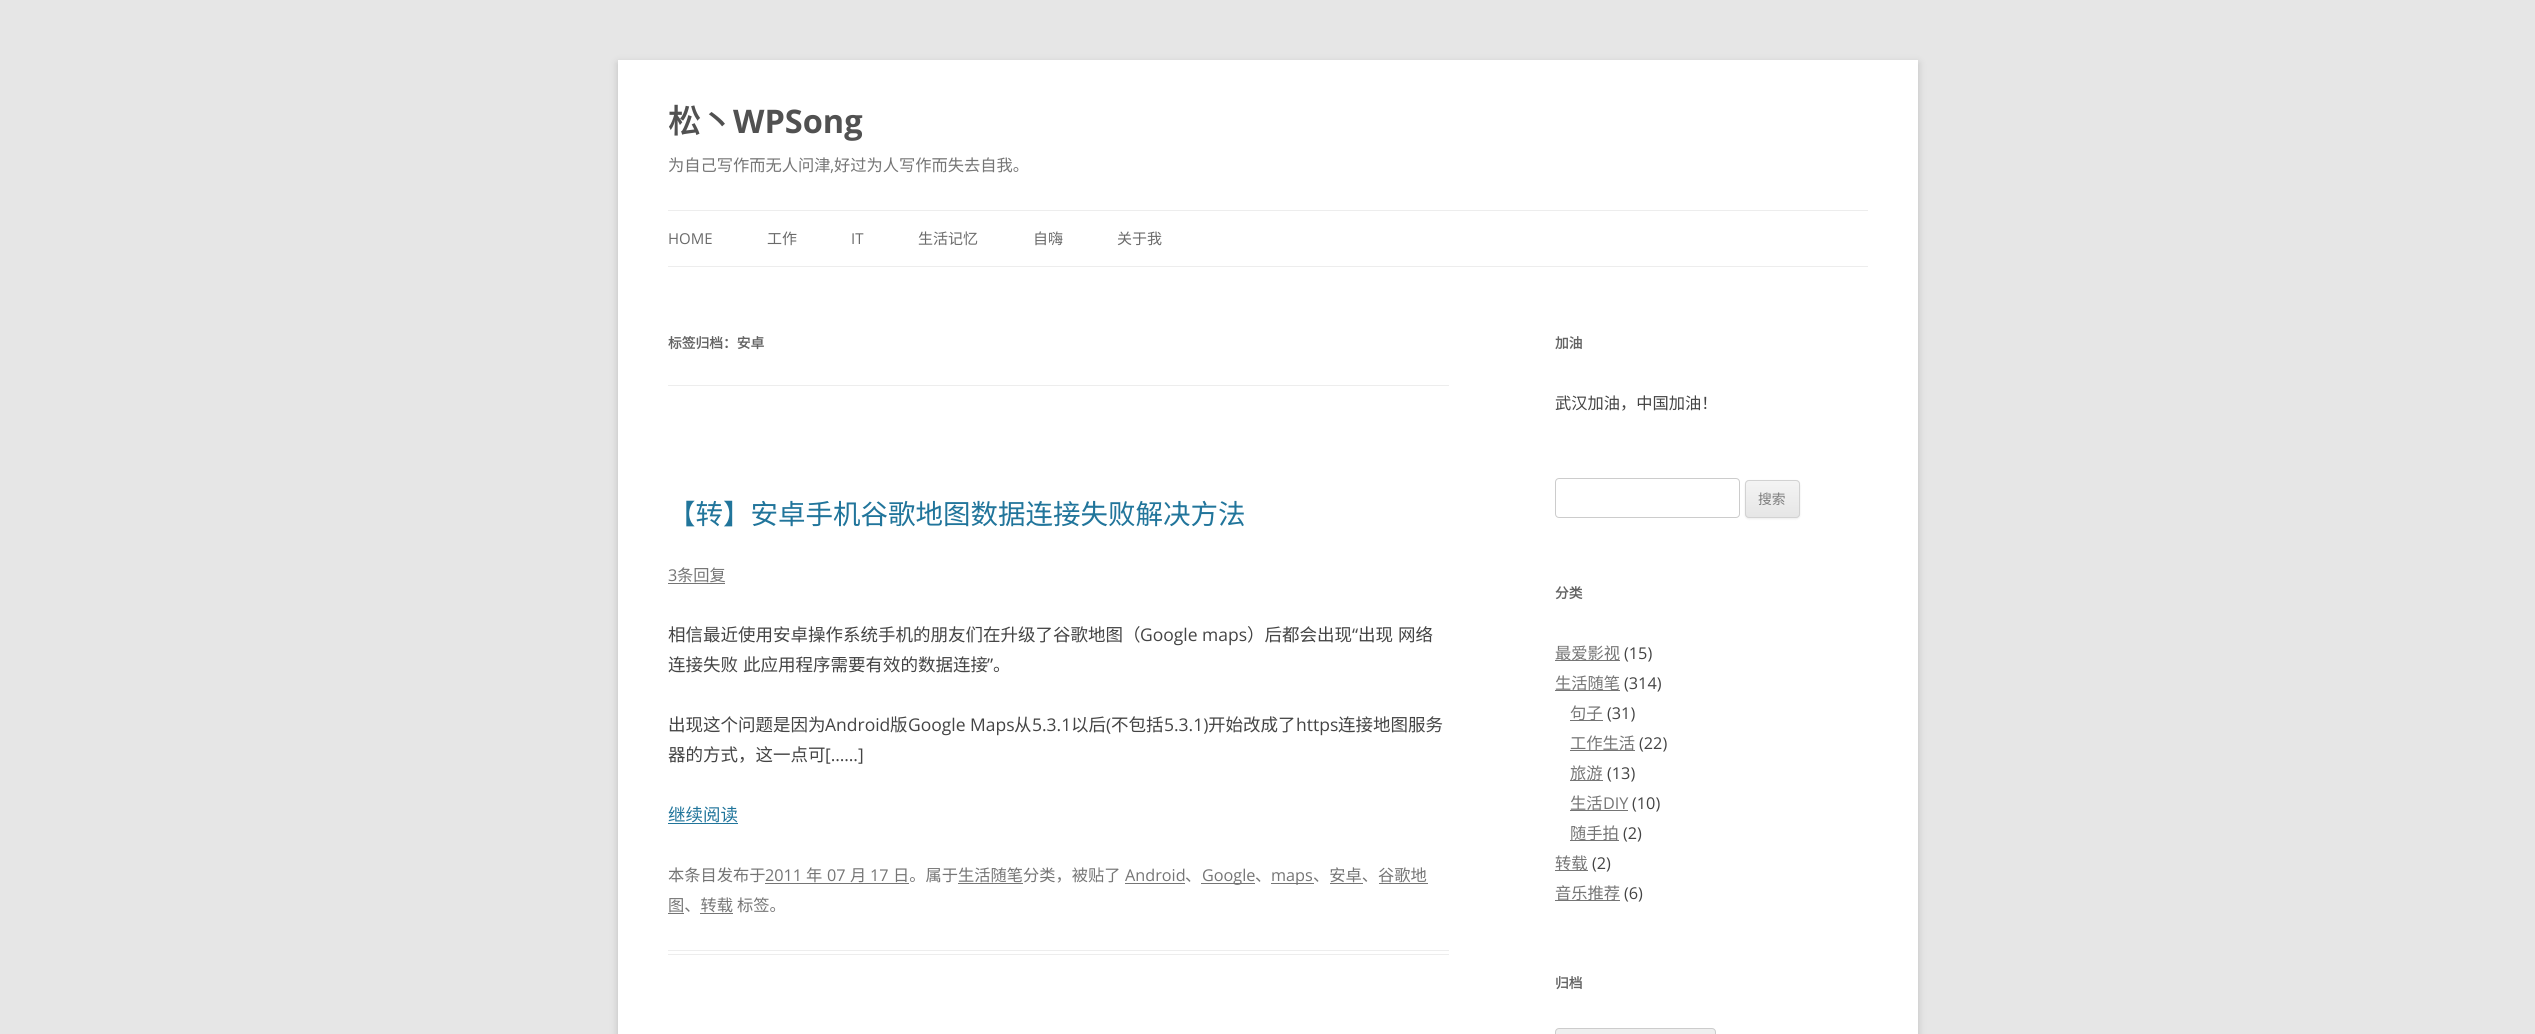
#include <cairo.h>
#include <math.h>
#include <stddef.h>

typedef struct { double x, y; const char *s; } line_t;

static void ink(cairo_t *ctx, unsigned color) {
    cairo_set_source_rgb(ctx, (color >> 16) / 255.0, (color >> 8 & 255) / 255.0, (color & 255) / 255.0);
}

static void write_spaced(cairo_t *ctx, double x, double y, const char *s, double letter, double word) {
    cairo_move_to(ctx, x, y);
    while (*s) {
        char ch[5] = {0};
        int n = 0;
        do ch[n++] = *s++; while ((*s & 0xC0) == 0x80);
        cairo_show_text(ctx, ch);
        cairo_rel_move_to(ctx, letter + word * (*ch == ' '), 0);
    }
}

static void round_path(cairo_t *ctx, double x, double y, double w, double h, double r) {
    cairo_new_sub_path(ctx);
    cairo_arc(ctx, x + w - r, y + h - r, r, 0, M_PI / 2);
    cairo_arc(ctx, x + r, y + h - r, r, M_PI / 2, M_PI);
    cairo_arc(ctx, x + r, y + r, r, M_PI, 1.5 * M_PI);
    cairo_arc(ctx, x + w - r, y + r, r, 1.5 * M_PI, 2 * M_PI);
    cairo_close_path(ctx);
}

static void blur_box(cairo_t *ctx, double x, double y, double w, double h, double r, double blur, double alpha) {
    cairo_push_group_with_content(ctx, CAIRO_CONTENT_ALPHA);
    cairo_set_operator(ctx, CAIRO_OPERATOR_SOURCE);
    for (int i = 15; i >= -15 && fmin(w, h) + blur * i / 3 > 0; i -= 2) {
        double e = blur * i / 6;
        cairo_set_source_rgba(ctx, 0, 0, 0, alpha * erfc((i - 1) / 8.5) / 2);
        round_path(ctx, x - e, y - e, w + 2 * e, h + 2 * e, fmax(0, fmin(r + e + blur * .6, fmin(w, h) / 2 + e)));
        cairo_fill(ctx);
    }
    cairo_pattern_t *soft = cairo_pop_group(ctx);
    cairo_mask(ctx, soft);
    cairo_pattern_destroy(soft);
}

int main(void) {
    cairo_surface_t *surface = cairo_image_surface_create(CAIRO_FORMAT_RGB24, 2535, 1034);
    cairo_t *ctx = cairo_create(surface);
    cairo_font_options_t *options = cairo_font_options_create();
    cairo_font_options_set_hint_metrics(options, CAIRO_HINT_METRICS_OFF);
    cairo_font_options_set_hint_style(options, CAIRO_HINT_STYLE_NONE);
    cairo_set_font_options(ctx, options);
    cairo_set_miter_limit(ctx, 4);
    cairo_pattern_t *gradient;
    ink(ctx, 0xE6E6E6);
    cairo_paint(ctx);
    ink(ctx, 0x646464);
    blur_box(ctx, 618, 63, 1300, 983, 0, 4, 0.3);
    ink(ctx, 0xFFFFFF);
    cairo_rectangle(ctx, 618, 60, 1300, 974);
    cairo_fill(ctx);
    cairo_select_font_face(ctx, "Noto Sans CJK SC", CAIRO_FONT_SLANT_NORMAL, CAIRO_FONT_WEIGHT_BOLD);
    cairo_set_font_size(ctx, 32.5);
    ink(ctx, 0x515151);
    cairo_move_to(ctx, 668, 133);
    cairo_show_text(ctx, "松丶");
    cairo_select_font_face(ctx, "Open Sans", CAIRO_FONT_SLANT_NORMAL, CAIRO_FONT_WEIGHT_BOLD);
    cairo_move_to(ctx, 733, 133);
    cairo_show_text(ctx, "WPSong");
    cairo_select_font_face(ctx, "Noto Sans CJK SC", CAIRO_FONT_SLANT_NORMAL, CAIRO_FONT_WEIGHT_NORMAL);
    cairo_set_font_size(ctx, 16.25);
    ink(ctx, 0x757575);
    cairo_move_to(ctx, 668, 171);
    cairo_show_text(ctx, "为自己写作而无人问津");
    cairo_select_font_face(ctx, "Open Sans", CAIRO_FONT_SLANT_NORMAL, CAIRO_FONT_WEIGHT_NORMAL);
    cairo_move_to(ctx, 830, 171);
    cairo_show_text(ctx, ",");
    cairo_select_font_face(ctx, "Noto Sans CJK SC", CAIRO_FONT_SLANT_NORMAL, CAIRO_FONT_WEIGHT_NORMAL);
    cairo_move_to(ctx, 834, 171);
    cairo_show_text(ctx, "好过为人写作而失去自我。");
    ink(ctx, 0xEDEDED);
    cairo_rectangle(ctx, 668, 210, 1200, 1);
    cairo_fill(ctx);
    cairo_rectangle(ctx, 668, 266, 1200, 1);
    cairo_fill(ctx);
    cairo_select_font_face(ctx, "Open Sans", CAIRO_FONT_SLANT_NORMAL, CAIRO_FONT_WEIGHT_NORMAL);
    cairo_set_font_size(ctx, 15);
    ink(ctx, 0x6A6A6A);
    cairo_move_to(ctx, 668, 244);
    cairo_show_text(ctx, "HOME");
    cairo_select_font_face(ctx, "Noto Sans CJK SC", CAIRO_FONT_SLANT_NORMAL, CAIRO_FONT_WEIGHT_NORMAL);
    cairo_move_to(ctx, 767, 244);
    cairo_show_text(ctx, "工作");
    cairo_select_font_face(ctx, "Open Sans", CAIRO_FONT_SLANT_NORMAL, CAIRO_FONT_WEIGHT_NORMAL);
    cairo_move_to(ctx, 851, 244);
    cairo_show_text(ctx, "IT");
    cairo_select_font_face(ctx, "Noto Sans CJK SC", CAIRO_FONT_SLANT_NORMAL, CAIRO_FONT_WEIGHT_NORMAL);
    {
        static const line_t items[] = {
            {918, 244, "生活记忆"},
            {1033, 244, "自嗨"},
            {1117, 244, "关于我"},
        };
        for (size_t i = 0; i < sizeof items / sizeof *items; i++) {
            cairo_move_to(ctx, items[i].x, items[i].y);
            cairo_show_text(ctx, items[i].s);
        }
    }
    ink(ctx, 0xEDEDED);
    cairo_rectangle(ctx, 668, 385, 781, 1);
    cairo_fill(ctx);
    cairo_select_font_face(ctx, "Noto Sans CJK SC", CAIRO_FONT_SLANT_NORMAL, CAIRO_FONT_WEIGHT_BOLD);
    cairo_set_font_size(ctx, 13.75);
    ink(ctx, 0x636363);
    cairo_move_to(ctx, 668, 348);
    cairo_show_text(ctx, "标签归档：安卓");
    ink(ctx, 0xEDEDED);
    cairo_rectangle(ctx, 668, 950, 781, 1);
    cairo_fill(ctx);
    cairo_rectangle(ctx, 668, 954, 781, 1);
    cairo_fill(ctx);
    cairo_select_font_face(ctx, "Noto Sans CJK SC", CAIRO_FONT_SLANT_NORMAL, CAIRO_FONT_WEIGHT_NORMAL);
    cairo_set_font_size(ctx, 27.5);
    ink(ctx, 0x21759B);
    cairo_move_to(ctx, 668, 524);
    cairo_show_text(ctx, "【转】安卓手机谷歌地图数据连接失败解决方法");
    cairo_select_font_face(ctx, "Open Sans", CAIRO_FONT_SLANT_NORMAL, CAIRO_FONT_WEIGHT_NORMAL);
    cairo_set_font_size(ctx, 16.25);
    ink(ctx, 0x757575);
    cairo_move_to(ctx, 668, 581);
    cairo_show_text(ctx, "3");
    cairo_rectangle(ctx, 668, 583, 57, 1);
    cairo_fill(ctx);
    cairo_select_font_face(ctx, "Noto Sans CJK SC", CAIRO_FONT_SLANT_NORMAL, CAIRO_FONT_WEIGHT_NORMAL);
    cairo_move_to(ctx, 677, 581);
    cairo_show_text(ctx, "条回复");
    cairo_set_font_size(ctx, 17.5);
    ink(ctx, 0x444444);
    cairo_move_to(ctx, 668, 641);
    cairo_show_text(ctx, "相信最近使用安卓操作系统手机的朋友们在升级了谷歌地图（");
    cairo_select_font_face(ctx, "Open Sans", CAIRO_FONT_SLANT_NORMAL, CAIRO_FONT_WEIGHT_NORMAL);
    cairo_move_to(ctx, 1140, 641);
    cairo_show_text(ctx, "Google maps");
    cairo_select_font_face(ctx, "Noto Sans CJK SC", CAIRO_FONT_SLANT_NORMAL, CAIRO_FONT_WEIGHT_NORMAL);
    cairo_move_to(ctx, 1247, 641);
    cairo_show_text(ctx, "）后都会出现");
    cairo_select_font_face(ctx, "Open Sans", CAIRO_FONT_SLANT_NORMAL, CAIRO_FONT_WEIGHT_NORMAL);
    cairo_move_to(ctx, 1352, 641);
    cairo_show_text(ctx, "“");
    cairo_select_font_face(ctx, "Noto Sans CJK SC", CAIRO_FONT_SLANT_NORMAL, CAIRO_FONT_WEIGHT_NORMAL);
    cairo_move_to(ctx, 1358, 641);
    cairo_show_text(ctx, "出现");
    cairo_move_to(ctx, 1398, 641);
    cairo_show_text(ctx, "网络");
    write_spaced(ctx, 668, 671, "连接失败 此应用程序需要有效的数据连接", 0, 1);
    cairo_select_font_face(ctx, "Open Sans", CAIRO_FONT_SLANT_NORMAL, CAIRO_FONT_WEIGHT_NORMAL);
    cairo_move_to(ctx, 987, 671);
    cairo_show_text(ctx, "”");
    cairo_select_font_face(ctx, "Noto Sans CJK SC", CAIRO_FONT_SLANT_NORMAL, CAIRO_FONT_WEIGHT_NORMAL);
    cairo_move_to(ctx, 993, 671);
    cairo_show_text(ctx, "。");
    cairo_move_to(ctx, 668, 731);
    cairo_show_text(ctx, "出现这个问题是因为");
    cairo_select_font_face(ctx, "Open Sans", CAIRO_FONT_SLANT_NORMAL, CAIRO_FONT_WEIGHT_NORMAL);
    cairo_move_to(ctx, 825, 731);
    cairo_show_text(ctx, "Android");
    cairo_select_font_face(ctx, "Noto Sans CJK SC", CAIRO_FONT_SLANT_NORMAL, CAIRO_FONT_WEIGHT_NORMAL);
    cairo_move_to(ctx, 890, 731);
    cairo_show_text(ctx, "版");
    cairo_select_font_face(ctx, "Open Sans", CAIRO_FONT_SLANT_NORMAL, CAIRO_FONT_WEIGHT_NORMAL);
    cairo_move_to(ctx, 908, 731);
    cairo_show_text(ctx, "Google Maps");
    cairo_select_font_face(ctx, "Noto Sans CJK SC", CAIRO_FONT_SLANT_NORMAL, CAIRO_FONT_WEIGHT_NORMAL);
    cairo_move_to(ctx, 1014, 731);
    cairo_show_text(ctx, "从");
    cairo_select_font_face(ctx, "Open Sans", CAIRO_FONT_SLANT_NORMAL, CAIRO_FONT_WEIGHT_NORMAL);
    cairo_move_to(ctx, 1032, 731);
    cairo_show_text(ctx, "5.3.1");
    cairo_select_font_face(ctx, "Noto Sans CJK SC", CAIRO_FONT_SLANT_NORMAL, CAIRO_FONT_WEIGHT_NORMAL);
    cairo_move_to(ctx, 1071, 731);
    cairo_show_text(ctx, "以后");
    cairo_select_font_face(ctx, "Open Sans", CAIRO_FONT_SLANT_NORMAL, CAIRO_FONT_WEIGHT_NORMAL);
    cairo_move_to(ctx, 1106, 731);
    cairo_show_text(ctx, "(");
    cairo_select_font_face(ctx, "Noto Sans CJK SC", CAIRO_FONT_SLANT_NORMAL, CAIRO_FONT_WEIGHT_NORMAL);
    cairo_move_to(ctx, 1111, 731);
    cairo_show_text(ctx, "不包括");
    cairo_select_font_face(ctx, "Open Sans", CAIRO_FONT_SLANT_NORMAL, CAIRO_FONT_WEIGHT_NORMAL);
    cairo_move_to(ctx, 1164, 731);
    cairo_show_text(ctx, "5.3.1)");
    cairo_select_font_face(ctx, "Noto Sans CJK SC", CAIRO_FONT_SLANT_NORMAL, CAIRO_FONT_WEIGHT_NORMAL);
    cairo_move_to(ctx, 1208, 731);
    cairo_show_text(ctx, "开始改成了");
    cairo_select_font_face(ctx, "Open Sans", CAIRO_FONT_SLANT_NORMAL, CAIRO_FONT_WEIGHT_NORMAL);
    cairo_move_to(ctx, 1296, 731);
    cairo_show_text(ctx, "https");
    cairo_select_font_face(ctx, "Noto Sans CJK SC", CAIRO_FONT_SLANT_NORMAL, CAIRO_FONT_WEIGHT_NORMAL);
    cairo_move_to(ctx, 1338, 731);
    cairo_show_text(ctx, "连接地图服务");
    cairo_move_to(ctx, 668, 761);
    cairo_show_text(ctx, "器的方式，这一点可");
    cairo_select_font_face(ctx, "Open Sans", CAIRO_FONT_SLANT_NORMAL, CAIRO_FONT_WEIGHT_NORMAL);
    cairo_move_to(ctx, 825, 761);
    cairo_show_text(ctx, "[……]");
    cairo_select_font_face(ctx, "Noto Sans CJK SC", CAIRO_FONT_SLANT_NORMAL, CAIRO_FONT_WEIGHT_NORMAL);
    ink(ctx, 0x21759B);
    cairo_move_to(ctx, 668, 821);
    cairo_show_text(ctx, "继续阅读");
    cairo_rectangle(ctx, 668, 823, 70, 1);
    cairo_fill(ctx);
    cairo_set_font_size(ctx, 16.25);
    ink(ctx, 0x757575);
    cairo_move_to(ctx, 668, 881);
    cairo_show_text(ctx, "本条目发布于");
    cairo_select_font_face(ctx, "Open Sans", CAIRO_FONT_SLANT_NORMAL, CAIRO_FONT_WEIGHT_NORMAL);
    cairo_move_to(ctx, 765, 881);
    cairo_show_text(ctx, "2011");
    cairo_rectangle(ctx, 765, 883, 144, 1);
    cairo_fill(ctx);
    cairo_select_font_face(ctx, "Noto Sans CJK SC", CAIRO_FONT_SLANT_NORMAL, CAIRO_FONT_WEIGHT_NORMAL);
    cairo_move_to(ctx, 806, 881);
    cairo_show_text(ctx, "年");
    cairo_select_font_face(ctx, "Open Sans", CAIRO_FONT_SLANT_NORMAL, CAIRO_FONT_WEIGHT_NORMAL);
    cairo_move_to(ctx, 827, 881);
    cairo_show_text(ctx, "07");
    cairo_select_font_face(ctx, "Noto Sans CJK SC", CAIRO_FONT_SLANT_NORMAL, CAIRO_FONT_WEIGHT_NORMAL);
    cairo_move_to(ctx, 850, 881);
    cairo_show_text(ctx, "月");
    cairo_select_font_face(ctx, "Open Sans", CAIRO_FONT_SLANT_NORMAL, CAIRO_FONT_WEIGHT_NORMAL);
    cairo_move_to(ctx, 870, 881);
    cairo_show_text(ctx, "17");
    cairo_select_font_face(ctx, "Noto Sans CJK SC", CAIRO_FONT_SLANT_NORMAL, CAIRO_FONT_WEIGHT_NORMAL);
    cairo_move_to(ctx, 893, 881);
    cairo_show_text(ctx, "日。属于生活随笔分类，被贴了");
    cairo_select_font_face(ctx, "Open Sans", CAIRO_FONT_SLANT_NORMAL, CAIRO_FONT_WEIGHT_NORMAL);
    cairo_move_to(ctx, 1125, 881);
    cairo_show_text(ctx, "Android");
    cairo_rectangle(ctx, 1125, 883, 60, 1);
    cairo_fill(ctx);
    cairo_select_font_face(ctx, "Noto Sans CJK SC", CAIRO_FONT_SLANT_NORMAL, CAIRO_FONT_WEIGHT_NORMAL);
    cairo_move_to(ctx, 1185, 881);
    cairo_show_text(ctx, "、");
    cairo_rectangle(ctx, 1201, 883, 54, 1);
    cairo_fill(ctx);
    cairo_select_font_face(ctx, "Open Sans", CAIRO_FONT_SLANT_NORMAL, CAIRO_FONT_WEIGHT_NORMAL);
    cairo_move_to(ctx, 1202, 881);
    cairo_show_text(ctx, "Google");
    cairo_select_font_face(ctx, "Noto Sans CJK SC", CAIRO_FONT_SLANT_NORMAL, CAIRO_FONT_WEIGHT_NORMAL);
    cairo_move_to(ctx, 1255, 881);
    cairo_show_text(ctx, "、");
    cairo_rectangle(ctx, 1271, 883, 43, 1);
    cairo_fill(ctx);
    cairo_select_font_face(ctx, "Open Sans", CAIRO_FONT_SLANT_NORMAL, CAIRO_FONT_WEIGHT_NORMAL);
    cairo_move_to(ctx, 1271, 881);
    cairo_show_text(ctx, "maps");
    cairo_select_font_face(ctx, "Noto Sans CJK SC", CAIRO_FONT_SLANT_NORMAL, CAIRO_FONT_WEIGHT_NORMAL);
    cairo_move_to(ctx, 1313, 881);
    cairo_show_text(ctx, "、安卓、谷歌地");
    cairo_rectangle(ctx, 958, 883, 65, 1);
    cairo_fill(ctx);
    cairo_rectangle(ctx, 1330, 883, 33, 1);
    cairo_fill(ctx);
    cairo_move_to(ctx, 668, 911);
    cairo_show_text(ctx, "图、转载");
    cairo_rectangle(ctx, 1379, 883, 49, 1);
    cairo_fill(ctx);
    cairo_rectangle(ctx, 668, 913, 16, 1);
    cairo_fill(ctx);
    cairo_move_to(ctx, 737, 911);
    cairo_show_text(ctx, "标签。");
    cairo_rectangle(ctx, 700, 913, 33, 1);
    cairo_fill(ctx);
    cairo_select_font_face(ctx, "Noto Sans CJK SC", CAIRO_FONT_SLANT_NORMAL, CAIRO_FONT_WEIGHT_BOLD);
    cairo_set_font_size(ctx, 13.75);
    ink(ctx, 0x636363);
    cairo_move_to(ctx, 1555, 348);
    cairo_show_text(ctx, "加油");
    cairo_select_font_face(ctx, "Noto Sans CJK SC", CAIRO_FONT_SLANT_NORMAL, CAIRO_FONT_WEIGHT_NORMAL);
    cairo_set_font_size(ctx, 16.25);
    ink(ctx, 0x444444);
    cairo_move_to(ctx, 1555, 409);
    cairo_show_text(ctx, "武汉加油，中国加油！");
    round_path(ctx, 1555.5, 478.5, 184, 39, 3.5);
    ink(ctx, 0xCCCCCC);
    cairo_set_line_width(ctx, 1);
    cairo_stroke(ctx);
    ink(ctx, 0x404040);
    blur_box(ctx, 1745, 481, 55, 38, 4, 1, 0.1);
    ink(ctx, 0xE6E6E6);
    round_path(ctx, 1745, 480, 55, 38, 4);
    cairo_fill(ctx);
    cairo_save(ctx);
    round_path(ctx, 1745, 480, 55, 38, 4);
    cairo_clip(ctx);
    gradient = cairo_pattern_create_linear(1773, 481, 1773, 516);
    cairo_pattern_add_color_stop_rgba(gradient, 0, 0.957, 0.957, 0.957, 1);
    cairo_pattern_add_color_stop_rgba(gradient, 1, 0.902, 0.902, 0.902, 1);
    cairo_set_source(ctx, gradient);
    cairo_pattern_destroy(gradient);
    cairo_rectangle(ctx, 1745, 481, 55, 35);
    cairo_fill(ctx);
    cairo_restore(ctx);
    round_path(ctx, 1745.5, 480.5, 54, 37, 3.5);
    ink(ctx, 0xD2D2D2);
    cairo_stroke(ctx);
    cairo_set_font_size(ctx, 13.75);
    ink(ctx, 0x7C7C7C);
    cairo_move_to(ctx, 1758, 504);
    cairo_show_text(ctx, "搜索");
    cairo_select_font_face(ctx, "Noto Sans CJK SC", CAIRO_FONT_SLANT_NORMAL, CAIRO_FONT_WEIGHT_BOLD);
    ink(ctx, 0x636363);
    cairo_move_to(ctx, 1555, 598);
    cairo_show_text(ctx, "分类");
    ink(ctx, 0x757575);
    cairo_rectangle(ctx, 1555, 660, 65, 1);
    cairo_fill(ctx);
    cairo_select_font_face(ctx, "Noto Sans CJK SC", CAIRO_FONT_SLANT_NORMAL, CAIRO_FONT_WEIGHT_NORMAL);
    cairo_set_font_size(ctx, 16.25);
    cairo_move_to(ctx, 1555, 659);
    cairo_show_text(ctx, "最爱影视");
    cairo_select_font_face(ctx, "Open Sans", CAIRO_FONT_SLANT_NORMAL, CAIRO_FONT_WEIGHT_NORMAL);
    ink(ctx, 0x444444);
    cairo_move_to(ctx, 1624, 659);
    cairo_show_text(ctx, "(15)");
    ink(ctx, 0x757575);
    cairo_rectangle(ctx, 1555, 690, 65, 1);
    cairo_fill(ctx);
    cairo_select_font_face(ctx, "Noto Sans CJK SC", CAIRO_FONT_SLANT_NORMAL, CAIRO_FONT_WEIGHT_NORMAL);
    cairo_move_to(ctx, 1555, 689);
    cairo_show_text(ctx, "生活随笔");
    cairo_select_font_face(ctx, "Open Sans", CAIRO_FONT_SLANT_NORMAL, CAIRO_FONT_WEIGHT_NORMAL);
    ink(ctx, 0x444444);
    cairo_move_to(ctx, 1624, 689);
    cairo_show_text(ctx, "(314)");
    ink(ctx, 0x757575);
    cairo_rectangle(ctx, 1570, 720, 33, 1);
    cairo_fill(ctx);
    cairo_select_font_face(ctx, "Noto Sans CJK SC", CAIRO_FONT_SLANT_NORMAL, CAIRO_FONT_WEIGHT_NORMAL);
    cairo_move_to(ctx, 1570, 719);
    cairo_show_text(ctx, "句子");
    cairo_select_font_face(ctx, "Open Sans", CAIRO_FONT_SLANT_NORMAL, CAIRO_FONT_WEIGHT_NORMAL);
    ink(ctx, 0x444444);
    cairo_move_to(ctx, 1607, 719);
    cairo_show_text(ctx, "(31)");
    ink(ctx, 0x757575);
    cairo_rectangle(ctx, 1570, 750, 65, 1);
    cairo_fill(ctx);
    cairo_select_font_face(ctx, "Noto Sans CJK SC", CAIRO_FONT_SLANT_NORMAL, CAIRO_FONT_WEIGHT_NORMAL);
    cairo_move_to(ctx, 1570, 749);
    cairo_show_text(ctx, "工作生活");
    cairo_select_font_face(ctx, "Open Sans", CAIRO_FONT_SLANT_NORMAL, CAIRO_FONT_WEIGHT_NORMAL);
    ink(ctx, 0x444444);
    cairo_move_to(ctx, 1639, 749);
    cairo_show_text(ctx, "(22)");
    ink(ctx, 0x757575);
    cairo_rectangle(ctx, 1570, 780, 33, 1);
    cairo_fill(ctx);
    cairo_select_font_face(ctx, "Noto Sans CJK SC", CAIRO_FONT_SLANT_NORMAL, CAIRO_FONT_WEIGHT_NORMAL);
    cairo_move_to(ctx, 1570, 779);
    cairo_show_text(ctx, "旅游");
    cairo_select_font_face(ctx, "Open Sans", CAIRO_FONT_SLANT_NORMAL, CAIRO_FONT_WEIGHT_NORMAL);
    ink(ctx, 0x444444);
    cairo_move_to(ctx, 1607, 779);
    cairo_show_text(ctx, "(13)");
    ink(ctx, 0x757575);
    cairo_rectangle(ctx, 1570, 810, 58, 1);
    cairo_fill(ctx);
    cairo_select_font_face(ctx, "Noto Sans CJK SC", CAIRO_FONT_SLANT_NORMAL, CAIRO_FONT_WEIGHT_NORMAL);
    cairo_move_to(ctx, 1570, 809);
    cairo_show_text(ctx, "生活");
    cairo_select_font_face(ctx, "Open Sans", CAIRO_FONT_SLANT_NORMAL, CAIRO_FONT_WEIGHT_NORMAL);
    cairo_move_to(ctx, 1603, 809);
    cairo_show_text(ctx, "DIY");
    ink(ctx, 0x444444);
    cairo_move_to(ctx, 1632, 809);
    cairo_show_text(ctx, "(10)");
    ink(ctx, 0x757575);
    cairo_rectangle(ctx, 1570, 840, 49, 1);
    cairo_fill(ctx);
    cairo_select_font_face(ctx, "Noto Sans CJK SC", CAIRO_FONT_SLANT_NORMAL, CAIRO_FONT_WEIGHT_NORMAL);
    cairo_move_to(ctx, 1570, 839);
    cairo_show_text(ctx, "随手拍");
    cairo_select_font_face(ctx, "Open Sans", CAIRO_FONT_SLANT_NORMAL, CAIRO_FONT_WEIGHT_NORMAL);
    ink(ctx, 0x444444);
    cairo_move_to(ctx, 1623, 839);
    cairo_show_text(ctx, "(2)");
    ink(ctx, 0x757575);
    cairo_rectangle(ctx, 1555, 870, 33, 1);
    cairo_fill(ctx);
    cairo_select_font_face(ctx, "Noto Sans CJK SC", CAIRO_FONT_SLANT_NORMAL, CAIRO_FONT_WEIGHT_NORMAL);
    cairo_move_to(ctx, 1555, 869);
    cairo_show_text(ctx, "转载");
    cairo_select_font_face(ctx, "Open Sans", CAIRO_FONT_SLANT_NORMAL, CAIRO_FONT_WEIGHT_NORMAL);
    ink(ctx, 0x444444);
    cairo_move_to(ctx, 1592, 869);
    cairo_show_text(ctx, "(2)");
    ink(ctx, 0x757575);
    cairo_rectangle(ctx, 1555, 900, 65, 1);
    cairo_fill(ctx);
    cairo_select_font_face(ctx, "Noto Sans CJK SC", CAIRO_FONT_SLANT_NORMAL, CAIRO_FONT_WEIGHT_NORMAL);
    cairo_move_to(ctx, 1555, 899);
    cairo_show_text(ctx, "音乐推荐");
    cairo_select_font_face(ctx, "Open Sans", CAIRO_FONT_SLANT_NORMAL, CAIRO_FONT_WEIGHT_NORMAL);
    ink(ctx, 0x444444);
    cairo_move_to(ctx, 1624, 899);
    cairo_show_text(ctx, "(6)");
    cairo_select_font_face(ctx, "Noto Sans CJK SC", CAIRO_FONT_SLANT_NORMAL, CAIRO_FONT_WEIGHT_BOLD);
    cairo_set_font_size(ctx, 13.75);
    ink(ctx, 0x636363);
    cairo_move_to(ctx, 1555, 988);
    cairo_show_text(ctx, "归档");
    ink(ctx, 0xEFEFEF);
    round_path(ctx, 1555.5, 1028.5, 160, 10, 3.5);
    cairo_fill_preserve(ctx);
    ink(ctx, 0xCCCCCC);
    cairo_stroke(ctx);
    cairo_surface_write_to_png(surface, "image.png");
    cairo_font_options_destroy(options);
    cairo_destroy(ctx);
    cairo_surface_destroy(surface);
    return 0;
}
